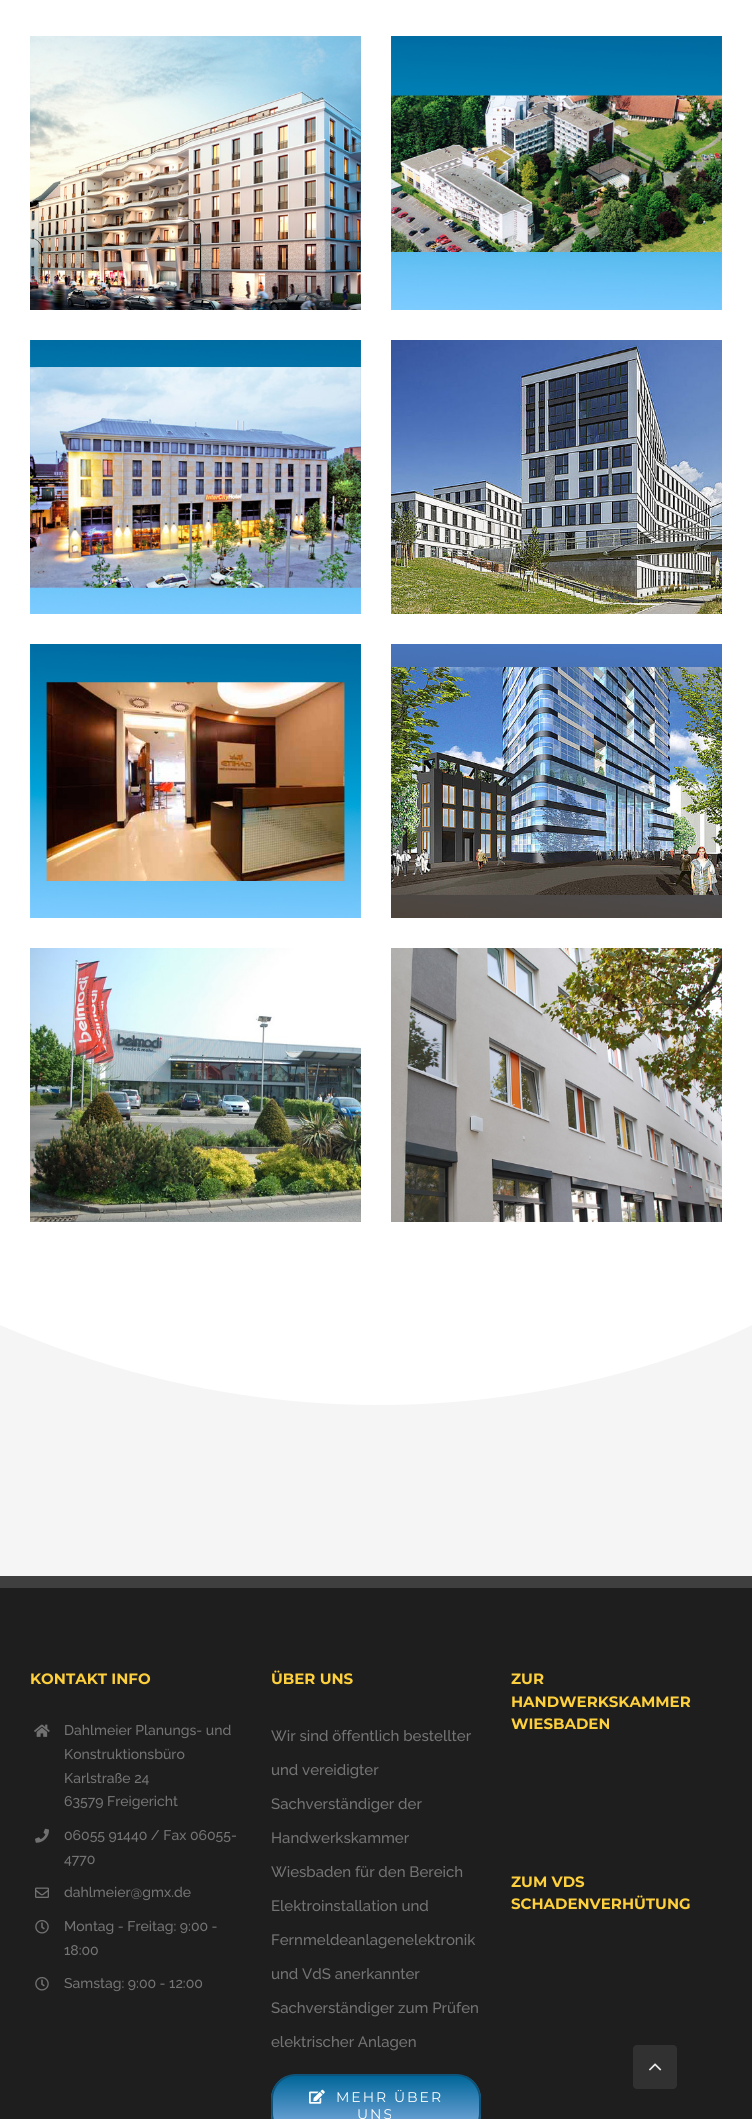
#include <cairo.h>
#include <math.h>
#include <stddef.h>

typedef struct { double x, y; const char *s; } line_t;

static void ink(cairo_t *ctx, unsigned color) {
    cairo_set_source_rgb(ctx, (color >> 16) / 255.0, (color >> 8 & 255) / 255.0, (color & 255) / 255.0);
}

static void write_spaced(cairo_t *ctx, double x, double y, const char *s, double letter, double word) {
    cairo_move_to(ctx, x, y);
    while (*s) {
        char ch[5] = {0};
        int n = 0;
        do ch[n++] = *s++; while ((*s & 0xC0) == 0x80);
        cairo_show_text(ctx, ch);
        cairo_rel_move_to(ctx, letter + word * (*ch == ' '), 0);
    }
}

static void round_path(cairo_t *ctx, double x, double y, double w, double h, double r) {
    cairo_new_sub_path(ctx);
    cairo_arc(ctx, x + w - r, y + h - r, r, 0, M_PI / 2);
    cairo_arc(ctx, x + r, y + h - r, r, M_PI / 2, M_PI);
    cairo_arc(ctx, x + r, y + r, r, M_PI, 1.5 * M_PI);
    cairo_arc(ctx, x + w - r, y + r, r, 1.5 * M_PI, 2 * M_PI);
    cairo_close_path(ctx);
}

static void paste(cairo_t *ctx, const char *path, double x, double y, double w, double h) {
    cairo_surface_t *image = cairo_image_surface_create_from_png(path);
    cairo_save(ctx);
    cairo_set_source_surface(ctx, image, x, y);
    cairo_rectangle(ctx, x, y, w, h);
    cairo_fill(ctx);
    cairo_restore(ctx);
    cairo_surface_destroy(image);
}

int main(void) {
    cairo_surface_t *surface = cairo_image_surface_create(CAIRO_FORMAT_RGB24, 752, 2119);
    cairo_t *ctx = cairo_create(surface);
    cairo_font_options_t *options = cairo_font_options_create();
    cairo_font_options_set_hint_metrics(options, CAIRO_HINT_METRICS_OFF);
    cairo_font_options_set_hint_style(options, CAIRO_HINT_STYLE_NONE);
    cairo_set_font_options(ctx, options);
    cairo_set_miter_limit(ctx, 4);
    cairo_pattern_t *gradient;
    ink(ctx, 0xFFFFFF);
    cairo_paint(ctx);
    paste(ctx, "media/1.png", 30, 36, 331, 274);
    paste(ctx, "media/2.png", 391, 36, 331, 274);
    paste(ctx, "media/3.png", 30, 340, 331, 274);
    paste(ctx, "media/4.png", 391, 340, 331, 274);
    paste(ctx, "media/5.png", 30, 644, 331, 274);
    paste(ctx, "media/6.png", 391, 644, 331, 274);
    paste(ctx, "media/7.png", 30, 948, 331, 274);
    paste(ctx, "media/8.png", 391, 948, 331, 274);
    ink(ctx, 0xF5F5F5);
    cairo_rectangle(ctx, 0, 1325, 752, 251);
    cairo_fill(ctx);
    ink(ctx, 0xFFFFFF);
    cairo_new_path(ctx);
    cairo_move_to(ctx, 0, 1325);
    cairo_curve_to(ctx, 414, 1505, 752, 1325, 752, 1325);
    cairo_close_path(ctx);
    cairo_fill(ctx);
    ink(ctx, 0x1E1E1E);
    cairo_rectangle(ctx, 0, 1588, 752, 531);
    cairo_fill(ctx);
    ink(ctx, 0x3F3F3F);
    cairo_rectangle(ctx, 0, 1576, 752, 12);
    cairo_fill(ctx);
    cairo_select_font_face(ctx, "Montserrat", CAIRO_FONT_SLANT_NORMAL, CAIRO_FONT_WEIGHT_BOLD);
    cairo_set_font_size(ctx, 15);
    ink(ctx, 0xFED03D);
    cairo_move_to(ctx, 30, 1684);
    cairo_show_text(ctx, "KONTAKT INFO");
    paste(ctx, "media/9.png", 34, 1724, 16, 13);
    cairo_select_font_face(ctx, "Raleway Medium", CAIRO_FONT_SLANT_NORMAL, CAIRO_FONT_WEIGHT_NORMAL);
    cairo_set_font_size(ctx, 14);
    ink(ctx, 0x747474);
    {
        static const line_t items[] = {
            {64, 1735, "Dahlmeier Planungs- und"},
            {64, 1759, "Konstruktionsbüro"},
            {64, 1783, "Karlstraße 24"},
            {64, 1806, "63579 Freigericht"},
        };
        for (size_t i = 0; i < sizeof items / sizeof *items; i++) {
            cairo_move_to(ctx, items[i].x, items[i].y);
            cairo_show_text(ctx, items[i].s);
        }
    }
    paste(ctx, "media/10.png", 35, 1828, 14, 15);
    cairo_move_to(ctx, 64, 1840);
    cairo_show_text(ctx, "06055 91440 / Fax 06055-");
    cairo_move_to(ctx, 64, 1864);
    cairo_show_text(ctx, "4770");
    paste(ctx, "media/11.png", 35, 1887, 14, 11);
    cairo_move_to(ctx, 64, 1897);
    cairo_show_text(ctx, "dahlmeier@gmx.de");
    paste(ctx, "media/12.png", 35, 1920, 14, 14);
    cairo_move_to(ctx, 64, 1931);
    cairo_show_text(ctx, "Montag - Freitag: 9:00 -");
    cairo_move_to(ctx, 64, 1955);
    cairo_show_text(ctx, "18:00");
    paste(ctx, "media/12.png", 35, 1977, 14, 14);
    cairo_move_to(ctx, 64, 1988);
    cairo_show_text(ctx, "Samstag: 9:00 - 12:00");
    cairo_select_font_face(ctx, "Montserrat", CAIRO_FONT_SLANT_NORMAL, CAIRO_FONT_WEIGHT_BOLD);
    cairo_set_font_size(ctx, 15);
    ink(ctx, 0xFED03D);
    cairo_move_to(ctx, 271, 1684);
    cairo_show_text(ctx, "ÜBER UNS");
    cairo_select_font_face(ctx, "Raleway Medium", CAIRO_FONT_SLANT_NORMAL, CAIRO_FONT_WEIGHT_NORMAL);
    ink(ctx, 0x747474);
    {
        static const line_t items[] = {
            {271, 1741, "Wir sind öffentlich bestellter"},
            {271, 1775, "und vereidigter"},
            {271, 1809, "Sachverständiger der"},
            {271, 1843, "Handwerkskammer"},
            {271, 1877, "Wiesbaden für den Bereich"},
            {271, 1911, "Elektroinstallation und"},
            {271, 1945, "Fernmeldeanlagenelektronik"},
            {271, 1979, "und VdS anerkannter"},
            {271, 2013, "Sachverständiger zum Prüfen"},
            {271, 2047, "elektrischer Anlagen"},
        };
        for (size_t i = 0; i < sizeof items / sizeof *items; i++) {
            cairo_move_to(ctx, items[i].x, items[i].y);
            cairo_show_text(ctx, items[i].s);
        }
    }
    cairo_save(ctx);
    round_path(ctx, 271, 2074, 210, 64, 25);
    cairo_clip(ctx);
    gradient = cairo_pattern_create_linear(376, 2076, 376, 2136);
    cairo_pattern_add_color_stop_rgba(gradient, 0, 0, 0.4, 0.6, 1);
    cairo_pattern_add_color_stop_rgba(gradient, 1, 0.537, 0.694, 0.898, 1);
    cairo_set_source(ctx, gradient);
    cairo_pattern_destroy(gradient);
    cairo_rectangle(ctx, 271, 2076, 210, 43);
    cairo_fill(ctx);
    cairo_restore(ctx);
    round_path(ctx, 272, 2075, 208, 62, 24);
    ink(ctx, 0x105378);
    cairo_stroke(ctx);
    paste(ctx, "media/13.png", 309, 2089, 16, 15);
    cairo_select_font_face(ctx, "Montserrat", CAIRO_FONT_SLANT_NORMAL, CAIRO_FONT_WEIGHT_NORMAL);
    cairo_set_font_size(ctx, 14);
    ink(ctx, 0xFFFFFF);
    write_spaced(ctx, 336, 2102, "MEHR ÜBER", 2, 0);
    write_spaced(ctx, 357, 2119, "UNS", 2, 0);
    cairo_select_font_face(ctx, "Montserrat", CAIRO_FONT_SLANT_NORMAL, CAIRO_FONT_WEIGHT_BOLD);
    cairo_set_font_size(ctx, 15);
    ink(ctx, 0xFED03D);
    {
        static const line_t items[] = {
            {511, 1684, "ZUR"},
            {511, 1707, "HANDWERKSKAMMER"},
            {511, 1729, "WIESBADEN"},
            {511, 1887, "ZUM VDS"},
            {511, 1909, "SCHADENVERHÜTUNG"},
        };
        for (size_t i = 0; i < sizeof items / sizeof *items; i++) {
            cairo_move_to(ctx, items[i].x, items[i].y);
            cairo_show_text(ctx, items[i].s);
        }
    }
    ink(ctx, 0x313131);
    round_path(ctx, 633, 2045, 44, 44, 4);
    cairo_fill(ctx);
    paste(ctx, "media/14.png", 649, 2063, 13, 8);
    cairo_surface_write_to_png(surface, "image.png");
    cairo_font_options_destroy(options);
    cairo_destroy(ctx);
    cairo_surface_destroy(surface);
    return 0;
}
